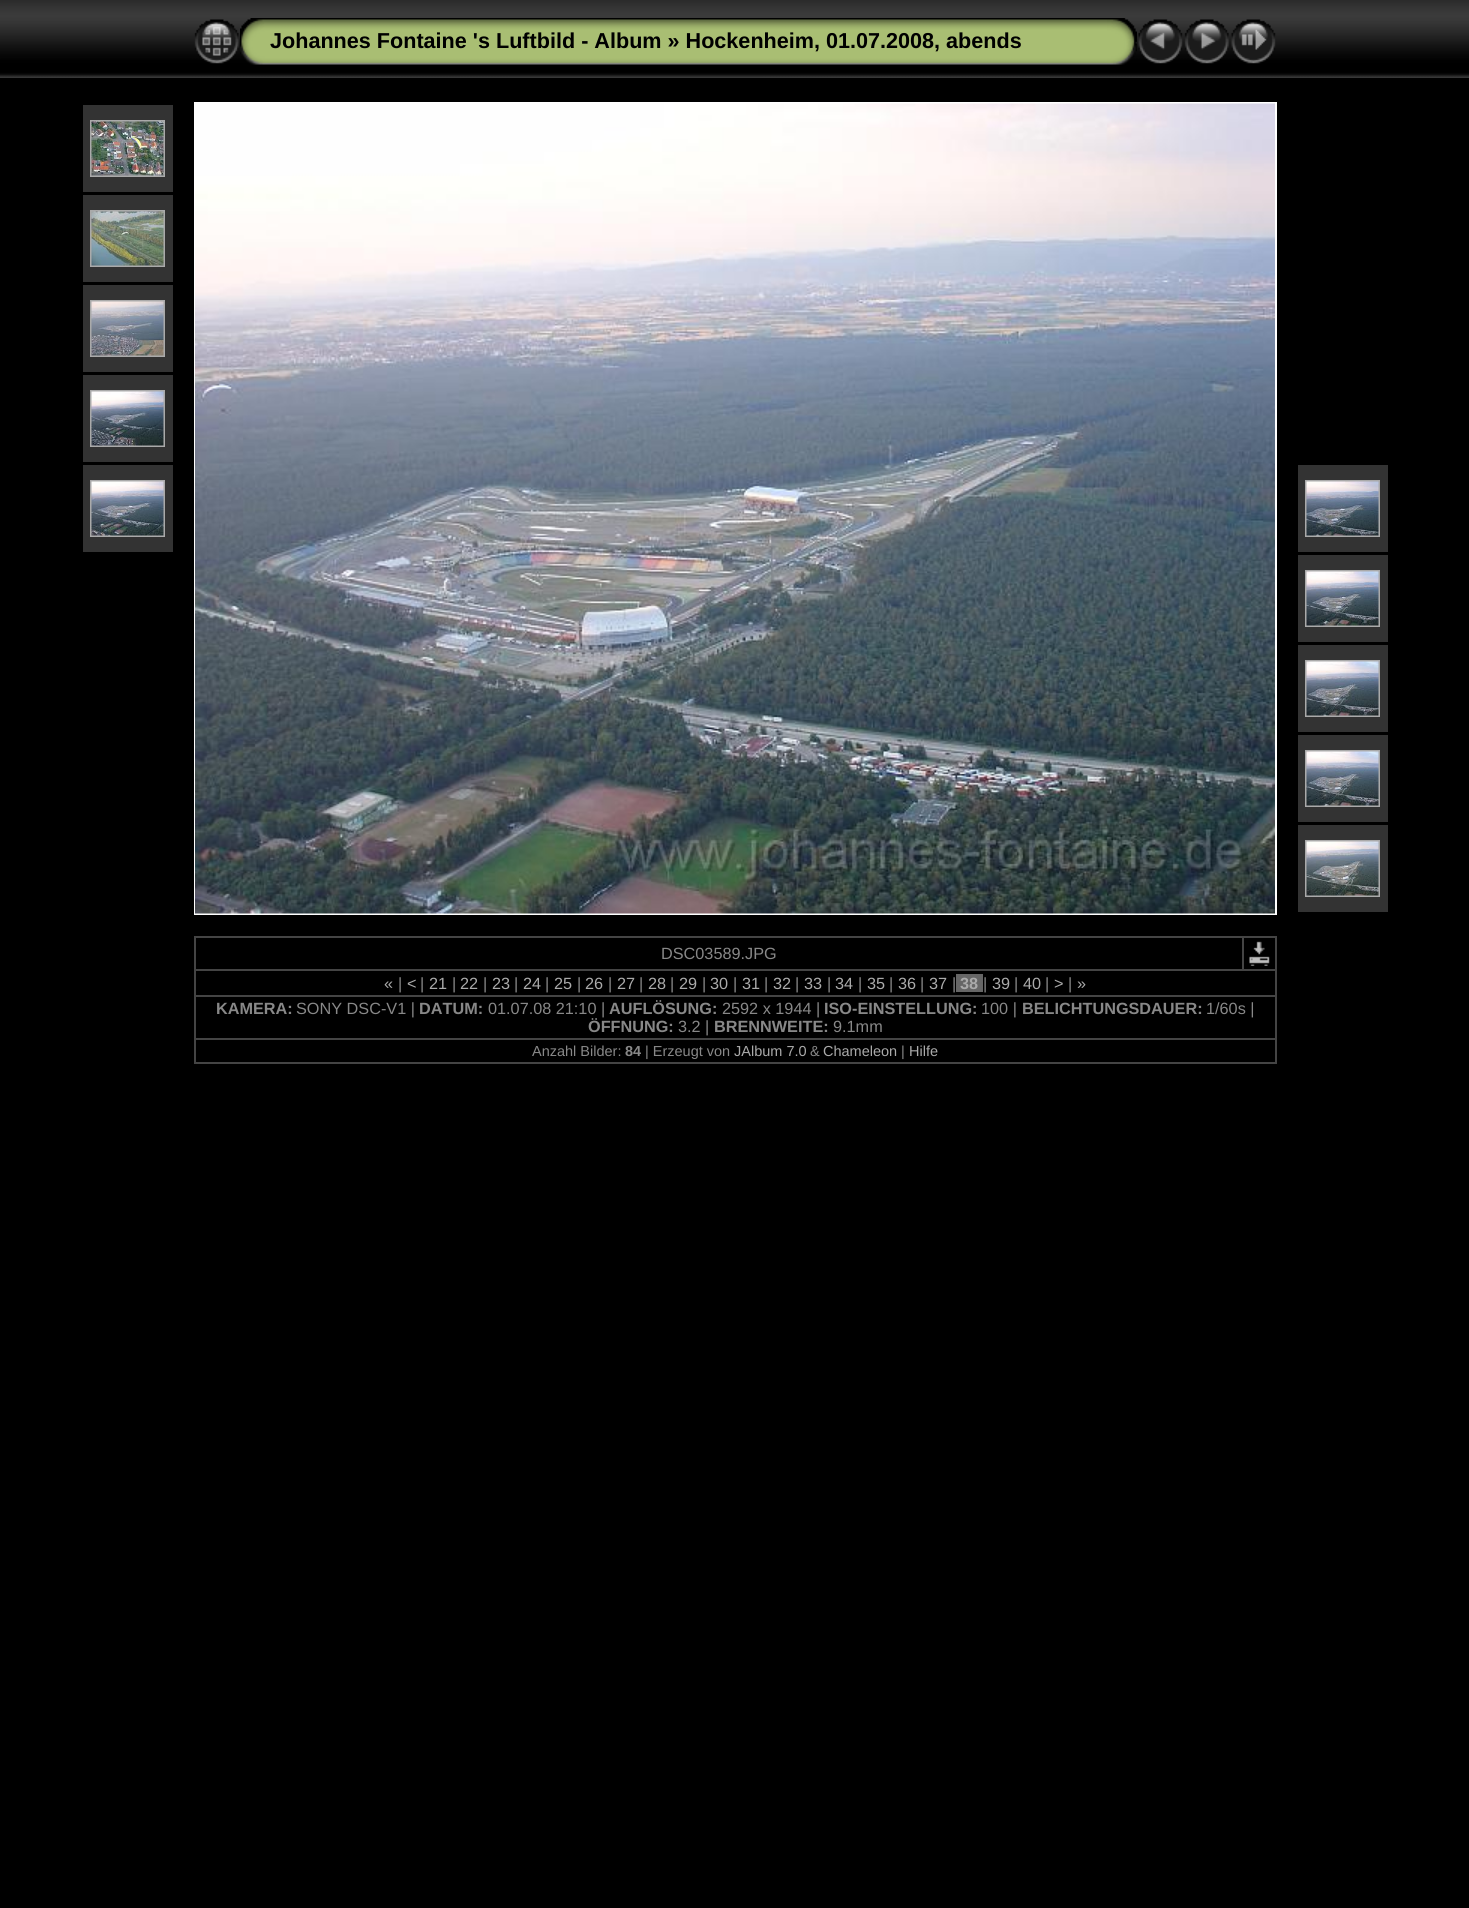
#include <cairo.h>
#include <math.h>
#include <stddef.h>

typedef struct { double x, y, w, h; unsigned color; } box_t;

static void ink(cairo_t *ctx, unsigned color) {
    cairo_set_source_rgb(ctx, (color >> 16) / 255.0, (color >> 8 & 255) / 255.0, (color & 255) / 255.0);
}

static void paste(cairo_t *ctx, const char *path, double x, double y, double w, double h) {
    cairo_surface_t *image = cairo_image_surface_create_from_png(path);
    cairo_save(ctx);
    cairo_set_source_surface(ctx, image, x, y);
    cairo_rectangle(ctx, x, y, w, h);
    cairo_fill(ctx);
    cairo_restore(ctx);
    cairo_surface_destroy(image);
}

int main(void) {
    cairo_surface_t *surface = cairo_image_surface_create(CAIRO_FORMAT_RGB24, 1469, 1908);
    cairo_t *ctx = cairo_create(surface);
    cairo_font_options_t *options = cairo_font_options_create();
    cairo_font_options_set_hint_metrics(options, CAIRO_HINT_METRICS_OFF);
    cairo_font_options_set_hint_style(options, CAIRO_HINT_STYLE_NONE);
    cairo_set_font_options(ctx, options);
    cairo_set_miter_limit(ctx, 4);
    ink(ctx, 0x000000);
    cairo_paint(ctx);
    paste(ctx, "media/1.png", 0, 0, 1469, 78);
    paste(ctx, "media/2.png", 194, 19, 45, 45);
    paste(ctx, "media/3.png", 240, 18, 30, 47);
    paste(ctx, "media/4.png", 270, 18, 837, 47);
    cairo_select_font_face(ctx, "Liberation Sans", CAIRO_FONT_SLANT_NORMAL, CAIRO_FONT_WEIGHT_BOLD);
    cairo_set_font_size(ctx, 21.6);
    ink(ctx, 0x000000);
    cairo_move_to(ctx, 270, 48);
    cairo_show_text(ctx, "Johannes Fontaine 's Luftbild - Album » Hockenheim, 01.07.2008, abends");
    paste(ctx, "media/5.png", 1107, 18, 30, 47);
    paste(ctx, "media/6.png", 1138, 19, 45, 45);
    paste(ctx, "media/7.png", 1184, 19, 45, 45);
    paste(ctx, "media/8.png", 1231, 19, 45, 45);
    ink(ctx, 0x333333);
    cairo_rectangle(ctx, 83, 105, 90, 87);
    cairo_fill(ctx);
    cairo_rectangle(ctx, 91, 121, 73, 55);
    ink(ctx, 0xAAAAAA);
    cairo_stroke(ctx);
    paste(ctx, "media/9.png", 91, 121, 73, 55);
    ink(ctx, 0x333333);
    cairo_rectangle(ctx, 83, 195, 90, 87);
    cairo_fill(ctx);
    cairo_rectangle(ctx, 91, 211, 73, 55);
    ink(ctx, 0xAAAAAA);
    cairo_stroke(ctx);
    paste(ctx, "media/10.png", 91, 211, 73, 55);
    ink(ctx, 0x333333);
    cairo_rectangle(ctx, 83, 285, 90, 87);
    cairo_fill(ctx);
    cairo_rectangle(ctx, 91, 301, 73, 55);
    ink(ctx, 0xAAAAAA);
    cairo_stroke(ctx);
    paste(ctx, "media/11.png", 91, 301, 73, 55);
    ink(ctx, 0x333333);
    cairo_rectangle(ctx, 83, 375, 90, 87);
    cairo_fill(ctx);
    cairo_rectangle(ctx, 91, 391, 73, 55);
    ink(ctx, 0xAAAAAA);
    cairo_stroke(ctx);
    paste(ctx, "media/12.png", 91, 391, 73, 55);
    ink(ctx, 0x333333);
    cairo_rectangle(ctx, 83, 465, 90, 87);
    cairo_fill(ctx);
    cairo_rectangle(ctx, 91, 481, 73, 55);
    ink(ctx, 0xAAAAAA);
    cairo_stroke(ctx);
    paste(ctx, "media/13.png", 91, 481, 73, 55);
    cairo_rectangle(ctx, 195, 103, 1081, 811);
    ink(ctx, 0xFFFFFF);
    cairo_stroke(ctx);
    paste(ctx, "media/14.png", 195, 103, 1080, 811);
    ink(ctx, 0x333333);
    cairo_rectangle(ctx, 1298, 465, 90, 87);
    cairo_fill(ctx);
    cairo_rectangle(ctx, 1306, 481, 73, 55);
    ink(ctx, 0xAAAAAA);
    cairo_stroke(ctx);
    paste(ctx, "media/15.png", 1306, 481, 73, 55);
    ink(ctx, 0x333333);
    cairo_rectangle(ctx, 1298, 555, 90, 87);
    cairo_fill(ctx);
    cairo_rectangle(ctx, 1306, 571, 73, 55);
    ink(ctx, 0xAAAAAA);
    cairo_stroke(ctx);
    paste(ctx, "media/16.png", 1306, 571, 73, 55);
    ink(ctx, 0x333333);
    cairo_rectangle(ctx, 1298, 645, 90, 87);
    cairo_fill(ctx);
    cairo_rectangle(ctx, 1306, 661, 73, 55);
    ink(ctx, 0xAAAAAA);
    cairo_stroke(ctx);
    paste(ctx, "media/17.png", 1306, 661, 73, 55);
    ink(ctx, 0x333333);
    cairo_rectangle(ctx, 1298, 735, 90, 87);
    cairo_fill(ctx);
    cairo_rectangle(ctx, 1306, 751, 73, 55);
    ink(ctx, 0xAAAAAA);
    cairo_stroke(ctx);
    paste(ctx, "media/18.png", 1306, 751, 73, 55);
    ink(ctx, 0x333333);
    cairo_rectangle(ctx, 1298, 825, 90, 87);
    cairo_fill(ctx);
    cairo_rectangle(ctx, 1306, 841, 73, 55);
    ink(ctx, 0xAAAAAA);
    cairo_stroke(ctx);
    paste(ctx, "media/19.png", 1306, 841, 73, 55);
    {
        static const box_t items[] = {
            {194, 936, 1083, 2, 0x444444},
            {1275, 936, 2, 128, 0x444444},
            {194, 1062, 1083, 2, 0x444444},
            {194, 936, 2, 128, 0x444444},
        };
        for (size_t i = 0; i < sizeof items / sizeof *items; i++) {
            ink(ctx, items[i].color);
            cairo_rectangle(ctx, items[i].x, items[i].y, items[i].w, items[i].h);
            cairo_fill(ctx);
        }
    }
    cairo_select_font_face(ctx, "Liberation Sans", CAIRO_FONT_SLANT_NORMAL, CAIRO_FONT_WEIGHT_NORMAL);
    cairo_set_font_size(ctx, 16.25);
    ink(ctx, 0x888888);
    cairo_move_to(ctx, 661, 959);
    cairo_show_text(ctx, "DSC03589.JPG");
    ink(ctx, 0x444444);
    cairo_rectangle(ctx, 194, 969, 1083, 2);
    cairo_fill(ctx);
    cairo_rectangle(ctx, 1242, 936, 2, 35);
    cairo_fill(ctx);
    paste(ctx, "media/20.png", 1249, 941, 21, 25);
    ink(ctx, 0xAAAAAA);
    cairo_move_to(ctx, 384, 989);
    cairo_show_text(ctx, "«");
    ink(ctx, 0x888888);
    cairo_move_to(ctx, 398, 989);
    cairo_show_text(ctx, "|");
    ink(ctx, 0xAAAAAA);
    cairo_move_to(ctx, 407, 989);
    cairo_show_text(ctx, "<");
    ink(ctx, 0x888888);
    cairo_move_to(ctx, 420, 989);
    cairo_show_text(ctx, "|");
    ink(ctx, 0xAAAAAA);
    cairo_move_to(ctx, 429, 989);
    cairo_show_text(ctx, "21");
    ink(ctx, 0x888888);
    cairo_move_to(ctx, 452, 989);
    cairo_show_text(ctx, "|");
    ink(ctx, 0xAAAAAA);
    cairo_move_to(ctx, 460, 989);
    cairo_show_text(ctx, "22");
    ink(ctx, 0x888888);
    cairo_move_to(ctx, 483, 989);
    cairo_show_text(ctx, "|");
    ink(ctx, 0xAAAAAA);
    cairo_move_to(ctx, 492, 989);
    cairo_show_text(ctx, "23");
    ink(ctx, 0x888888);
    cairo_move_to(ctx, 514, 989);
    cairo_show_text(ctx, "|");
    ink(ctx, 0xAAAAAA);
    cairo_move_to(ctx, 523, 989);
    cairo_show_text(ctx, "24");
    ink(ctx, 0x888888);
    cairo_move_to(ctx, 545, 989);
    cairo_show_text(ctx, "|");
    ink(ctx, 0xAAAAAA);
    cairo_move_to(ctx, 554, 989);
    cairo_show_text(ctx, "25");
    ink(ctx, 0x888888);
    cairo_move_to(ctx, 577, 989);
    cairo_show_text(ctx, "|");
    ink(ctx, 0xAAAAAA);
    cairo_move_to(ctx, 585, 989);
    cairo_show_text(ctx, "26");
    ink(ctx, 0x888888);
    cairo_move_to(ctx, 608, 989);
    cairo_show_text(ctx, "|");
    ink(ctx, 0xAAAAAA);
    cairo_move_to(ctx, 617, 989);
    cairo_show_text(ctx, "27");
    ink(ctx, 0x888888);
    cairo_move_to(ctx, 639, 989);
    cairo_show_text(ctx, "|");
    ink(ctx, 0xAAAAAA);
    cairo_move_to(ctx, 648, 989);
    cairo_show_text(ctx, "28");
    ink(ctx, 0x888888);
    cairo_move_to(ctx, 670, 989);
    cairo_show_text(ctx, "|");
    ink(ctx, 0xAAAAAA);
    cairo_move_to(ctx, 679, 989);
    cairo_show_text(ctx, "29");
    ink(ctx, 0x888888);
    cairo_move_to(ctx, 702, 989);
    cairo_show_text(ctx, "|");
    ink(ctx, 0xAAAAAA);
    cairo_move_to(ctx, 710, 989);
    cairo_show_text(ctx, "30");
    ink(ctx, 0x888888);
    cairo_move_to(ctx, 733, 989);
    cairo_show_text(ctx, "|");
    ink(ctx, 0xAAAAAA);
    cairo_move_to(ctx, 742, 989);
    cairo_show_text(ctx, "31");
    ink(ctx, 0x888888);
    cairo_move_to(ctx, 764, 989);
    cairo_show_text(ctx, "|");
    ink(ctx, 0xAAAAAA);
    cairo_move_to(ctx, 773, 989);
    cairo_show_text(ctx, "32");
    ink(ctx, 0x888888);
    cairo_move_to(ctx, 795, 989);
    cairo_show_text(ctx, "|");
    ink(ctx, 0xAAAAAA);
    cairo_move_to(ctx, 804, 989);
    cairo_show_text(ctx, "33");
    ink(ctx, 0x888888);
    cairo_move_to(ctx, 827, 989);
    cairo_show_text(ctx, "|");
    ink(ctx, 0xAAAAAA);
    cairo_move_to(ctx, 835, 989);
    cairo_show_text(ctx, "34");
    ink(ctx, 0x888888);
    cairo_move_to(ctx, 858, 989);
    cairo_show_text(ctx, "|");
    ink(ctx, 0xAAAAAA);
    cairo_move_to(ctx, 867, 989);
    cairo_show_text(ctx, "35");
    ink(ctx, 0x888888);
    cairo_move_to(ctx, 889, 989);
    cairo_show_text(ctx, "|");
    ink(ctx, 0xAAAAAA);
    cairo_move_to(ctx, 898, 989);
    cairo_show_text(ctx, "36");
    ink(ctx, 0x888888);
    cairo_move_to(ctx, 920, 989);
    cairo_show_text(ctx, "|");
    ink(ctx, 0xAAAAAA);
    cairo_move_to(ctx, 929, 989);
    cairo_show_text(ctx, "37");
    ink(ctx, 0x888888);
    cairo_move_to(ctx, 952, 989);
    cairo_show_text(ctx, "|");
    ink(ctx, 0x666666);
    cairo_rectangle(ctx, 956, 974, 27, 18);
    cairo_fill(ctx);
    cairo_select_font_face(ctx, "Liberation Sans", CAIRO_FONT_SLANT_NORMAL, CAIRO_FONT_WEIGHT_BOLD);
    ink(ctx, 0xAAAAAA);
    cairo_move_to(ctx, 960, 989);
    cairo_show_text(ctx, "38");
    cairo_select_font_face(ctx, "Liberation Sans", CAIRO_FONT_SLANT_NORMAL, CAIRO_FONT_WEIGHT_NORMAL);
    ink(ctx, 0x888888);
    cairo_move_to(ctx, 983, 989);
    cairo_show_text(ctx, "|");
    ink(ctx, 0xAAAAAA);
    cairo_move_to(ctx, 992, 989);
    cairo_show_text(ctx, "39");
    ink(ctx, 0x888888);
    cairo_move_to(ctx, 1014, 989);
    cairo_show_text(ctx, "|");
    ink(ctx, 0xAAAAAA);
    cairo_move_to(ctx, 1023, 989);
    cairo_show_text(ctx, "40");
    ink(ctx, 0x888888);
    cairo_move_to(ctx, 1045, 989);
    cairo_show_text(ctx, "|");
    ink(ctx, 0xAAAAAA);
    cairo_move_to(ctx, 1054, 989);
    cairo_show_text(ctx, ">");
    ink(ctx, 0x888888);
    cairo_move_to(ctx, 1068, 989);
    cairo_show_text(ctx, "|");
    ink(ctx, 0xAAAAAA);
    cairo_move_to(ctx, 1077, 989);
    cairo_show_text(ctx, "»");
    ink(ctx, 0x444444);
    cairo_rectangle(ctx, 194, 995, 1083, 2);
    cairo_fill(ctx);
    cairo_select_font_face(ctx, "Liberation Sans", CAIRO_FONT_SLANT_NORMAL, CAIRO_FONT_WEIGHT_BOLD);
    ink(ctx, 0x888888);
    cairo_move_to(ctx, 216, 1014);
    cairo_show_text(ctx, "KAMERA:");
    cairo_select_font_face(ctx, "Liberation Sans", CAIRO_FONT_SLANT_NORMAL, CAIRO_FONT_WEIGHT_NORMAL);
    cairo_move_to(ctx, 296, 1014);
    cairo_show_text(ctx, "SONY DSC-V1 |");
    cairo_select_font_face(ctx, "Liberation Sans", CAIRO_FONT_SLANT_NORMAL, CAIRO_FONT_WEIGHT_BOLD);
    cairo_move_to(ctx, 419, 1014);
    cairo_show_text(ctx, "DATUM:");
    cairo_select_font_face(ctx, "Liberation Sans", CAIRO_FONT_SLANT_NORMAL, CAIRO_FONT_WEIGHT_NORMAL);
    cairo_move_to(ctx, 488, 1014);
    cairo_show_text(ctx, "01.07.08 21:10 |");
    cairo_select_font_face(ctx, "Liberation Sans", CAIRO_FONT_SLANT_NORMAL, CAIRO_FONT_WEIGHT_BOLD);
    cairo_move_to(ctx, 609, 1014);
    cairo_show_text(ctx, "AUFLÖSUNG:");
    cairo_select_font_face(ctx, "Liberation Sans", CAIRO_FONT_SLANT_NORMAL, CAIRO_FONT_WEIGHT_NORMAL);
    cairo_move_to(ctx, 722, 1014);
    cairo_show_text(ctx, "2592 x 1944 |");
    cairo_select_font_face(ctx, "Liberation Sans", CAIRO_FONT_SLANT_NORMAL, CAIRO_FONT_WEIGHT_BOLD);
    cairo_move_to(ctx, 824, 1014);
    cairo_show_text(ctx, "ISO-EINSTELLUNG:");
    cairo_select_font_face(ctx, "Liberation Sans", CAIRO_FONT_SLANT_NORMAL, CAIRO_FONT_WEIGHT_NORMAL);
    cairo_move_to(ctx, 981, 1014);
    cairo_show_text(ctx, "100 |");
    cairo_select_font_face(ctx, "Liberation Sans", CAIRO_FONT_SLANT_NORMAL, CAIRO_FONT_WEIGHT_BOLD);
    cairo_move_to(ctx, 1022, 1014);
    cairo_show_text(ctx, "BELICHTUNGSDAUER:");
    cairo_select_font_face(ctx, "Liberation Sans", CAIRO_FONT_SLANT_NORMAL, CAIRO_FONT_WEIGHT_NORMAL);
    cairo_move_to(ctx, 1206, 1014);
    cairo_show_text(ctx, "1/60s |");
    cairo_select_font_face(ctx, "Liberation Sans", CAIRO_FONT_SLANT_NORMAL, CAIRO_FONT_WEIGHT_BOLD);
    cairo_move_to(ctx, 588, 1032);
    cairo_show_text(ctx, "ÖFFNUNG:");
    cairo_select_font_face(ctx, "Liberation Sans", CAIRO_FONT_SLANT_NORMAL, CAIRO_FONT_WEIGHT_NORMAL);
    cairo_move_to(ctx, 678, 1032);
    cairo_show_text(ctx, "3.2 |");
    cairo_select_font_face(ctx, "Liberation Sans", CAIRO_FONT_SLANT_NORMAL, CAIRO_FONT_WEIGHT_BOLD);
    cairo_move_to(ctx, 714, 1032);
    cairo_show_text(ctx, "BRENNWEITE:");
    cairo_select_font_face(ctx, "Liberation Sans", CAIRO_FONT_SLANT_NORMAL, CAIRO_FONT_WEIGHT_NORMAL);
    cairo_move_to(ctx, 833, 1032);
    cairo_show_text(ctx, "9.1mm");
    ink(ctx, 0x444444);
    cairo_rectangle(ctx, 194, 1038, 1083, 2);
    cairo_fill(ctx);
    cairo_set_font_size(ctx, 14.5);
    ink(ctx, 0x888888);
    cairo_move_to(ctx, 532, 1056);
    cairo_show_text(ctx, "Anzahl Bilder:");
    cairo_select_font_face(ctx, "Liberation Sans", CAIRO_FONT_SLANT_NORMAL, CAIRO_FONT_WEIGHT_BOLD);
    cairo_move_to(ctx, 625, 1056);
    cairo_show_text(ctx, "84");
    cairo_select_font_face(ctx, "Liberation Sans", CAIRO_FONT_SLANT_NORMAL, CAIRO_FONT_WEIGHT_NORMAL);
    cairo_move_to(ctx, 645, 1056);
    cairo_show_text(ctx, "| Erzeugt von");
    ink(ctx, 0xAAAAAA);
    cairo_move_to(ctx, 734, 1056);
    cairo_show_text(ctx, "JAlbum 7.0");
    ink(ctx, 0x888888);
    cairo_move_to(ctx, 810, 1056);
    cairo_show_text(ctx, "&");
    ink(ctx, 0xAAAAAA);
    cairo_move_to(ctx, 823, 1056);
    cairo_show_text(ctx, "Chameleon");
    ink(ctx, 0x888888);
    cairo_move_to(ctx, 901, 1056);
    cairo_show_text(ctx, "|");
    ink(ctx, 0xAAAAAA);
    cairo_move_to(ctx, 909, 1056);
    cairo_show_text(ctx, "Hilfe");
    cairo_surface_write_to_png(surface, "image.png");
    cairo_font_options_destroy(options);
    cairo_destroy(ctx);
    cairo_surface_destroy(surface);
    return 0;
}
